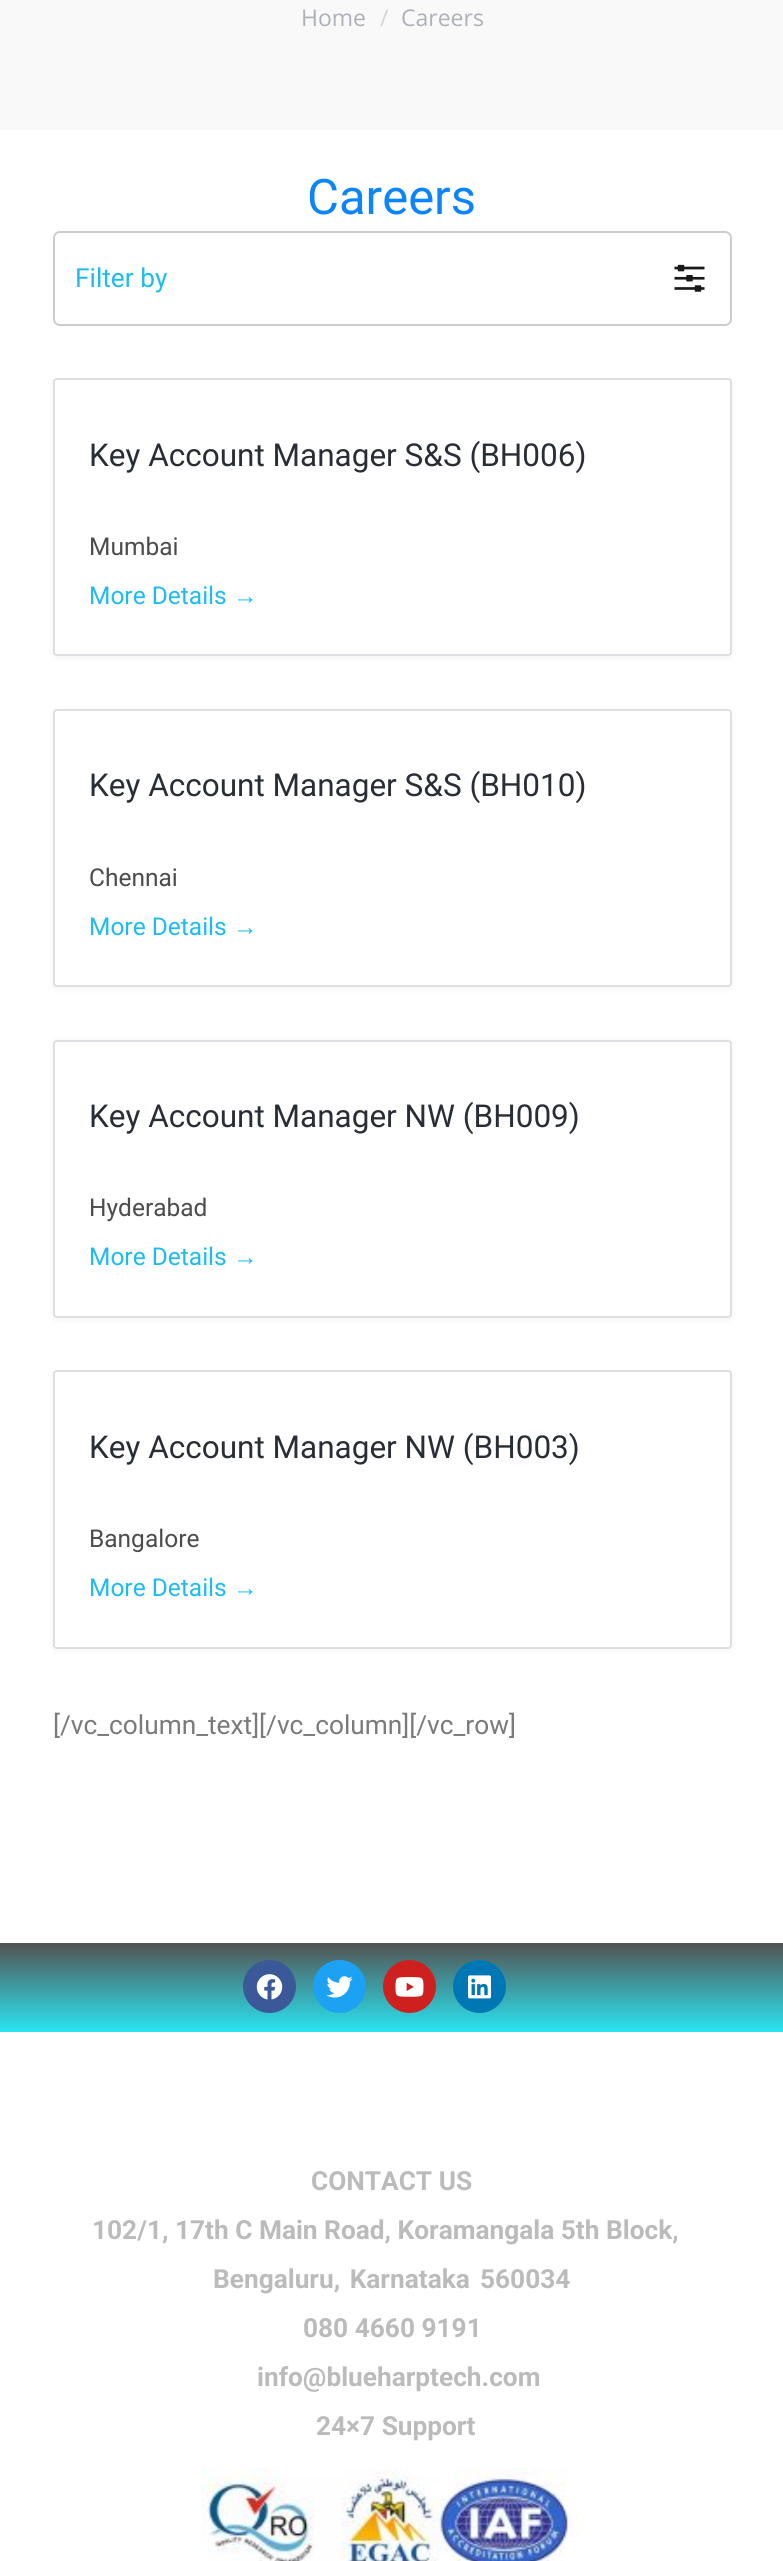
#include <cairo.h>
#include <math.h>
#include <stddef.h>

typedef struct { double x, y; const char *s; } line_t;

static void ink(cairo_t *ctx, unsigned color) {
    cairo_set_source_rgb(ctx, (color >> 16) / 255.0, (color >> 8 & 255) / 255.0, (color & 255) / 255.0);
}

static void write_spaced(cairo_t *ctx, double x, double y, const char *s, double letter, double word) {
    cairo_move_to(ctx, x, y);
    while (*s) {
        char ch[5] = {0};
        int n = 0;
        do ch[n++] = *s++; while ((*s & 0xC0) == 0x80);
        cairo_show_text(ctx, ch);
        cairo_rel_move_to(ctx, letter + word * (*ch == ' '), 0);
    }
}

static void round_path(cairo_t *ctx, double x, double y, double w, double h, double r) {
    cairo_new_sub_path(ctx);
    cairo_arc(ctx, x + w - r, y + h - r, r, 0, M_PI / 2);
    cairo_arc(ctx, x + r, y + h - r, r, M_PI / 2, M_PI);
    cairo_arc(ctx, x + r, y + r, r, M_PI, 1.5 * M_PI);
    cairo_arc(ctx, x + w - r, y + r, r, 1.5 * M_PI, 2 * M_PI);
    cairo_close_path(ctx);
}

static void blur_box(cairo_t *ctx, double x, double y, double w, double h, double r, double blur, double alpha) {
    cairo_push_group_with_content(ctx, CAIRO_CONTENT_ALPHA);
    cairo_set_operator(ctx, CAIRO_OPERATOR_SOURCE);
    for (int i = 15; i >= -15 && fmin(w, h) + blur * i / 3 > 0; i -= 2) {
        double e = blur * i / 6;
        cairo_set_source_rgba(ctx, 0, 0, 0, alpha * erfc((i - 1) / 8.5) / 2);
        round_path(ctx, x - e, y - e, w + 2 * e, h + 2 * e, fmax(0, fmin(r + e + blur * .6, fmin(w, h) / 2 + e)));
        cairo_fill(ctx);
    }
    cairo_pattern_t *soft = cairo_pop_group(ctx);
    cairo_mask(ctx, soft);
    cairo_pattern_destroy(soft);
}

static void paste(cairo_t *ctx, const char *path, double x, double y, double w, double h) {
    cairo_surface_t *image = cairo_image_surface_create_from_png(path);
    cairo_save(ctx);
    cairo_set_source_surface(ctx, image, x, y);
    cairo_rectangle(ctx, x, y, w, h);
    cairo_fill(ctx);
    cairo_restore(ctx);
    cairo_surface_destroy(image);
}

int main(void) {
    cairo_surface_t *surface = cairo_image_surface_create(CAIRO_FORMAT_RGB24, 783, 2561);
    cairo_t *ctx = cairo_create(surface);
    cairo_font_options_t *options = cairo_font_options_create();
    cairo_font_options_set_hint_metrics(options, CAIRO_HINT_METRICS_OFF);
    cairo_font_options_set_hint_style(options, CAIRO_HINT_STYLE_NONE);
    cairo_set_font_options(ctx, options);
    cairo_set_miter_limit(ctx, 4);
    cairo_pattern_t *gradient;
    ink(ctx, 0xFFFFFF);
    cairo_paint(ctx);
    ink(ctx, 0xF9F9FA);
    cairo_rectangle(ctx, 0, 0, 783, 130);
    cairo_fill(ctx);
    cairo_select_font_face(ctx, "Open Sans", CAIRO_FONT_SLANT_NORMAL, CAIRO_FONT_WEIGHT_NORMAL);
    cairo_set_font_size(ctx, 23);
    ink(ctx, 0xADB0B6);
    cairo_move_to(ctx, 301, 26);
    cairo_show_text(ctx, "Home");
    ink(ctx, 0xD3D5D8);
    cairo_move_to(ctx, 380, 26);
    cairo_show_text(ctx, "/");
    ink(ctx, 0xADB0B6);
    cairo_move_to(ctx, 401, 26);
    cairo_show_text(ctx, "Careers");
    cairo_select_font_face(ctx, "Roboto", CAIRO_FONT_SLANT_NORMAL, CAIRO_FONT_WEIGHT_NORMAL);
    cairo_set_font_size(ctx, 49);
    ink(ctx, 0x0C85FB);
    cairo_move_to(ctx, 307, 214);
    cairo_show_text(ctx, "Careers");
    round_path(ctx, 54, 232, 677, 93, 6);
    ink(ctx, 0xCCCCCC);
    cairo_stroke(ctx);
    cairo_set_font_size(ctx, 26.25);
    ink(ctx, 0x1EBBF0);
    cairo_move_to(ctx, 75, 287);
    cairo_show_text(ctx, "Filter by");
    paste(ctx, "media/1.png", 674, 264, 31, 28);
    ink(ctx, 0x000000);
    blur_box(ctx, 53, 380, 679, 278, 4, 3.5, 0.05);
    ink(ctx, 0xFFFFFF);
    round_path(ctx, 54, 379, 677, 276, 3);
    cairo_fill_preserve(ctx);
    ink(ctx, 0xDDDFE3);
    cairo_stroke(ctx);
    cairo_set_font_size(ctx, 31.5);
    ink(ctx, 0x292E36);
    cairo_move_to(ctx, 89, 466);
    cairo_show_text(ctx, "Key Account Manager S&S (BH006)");
    cairo_set_font_size(ctx, 24.5);
    ink(ctx, 0x4C4C4C);
    cairo_move_to(ctx, 89, 555);
    cairo_show_text(ctx, "Mumbai");
    ink(ctx, 0x1EBBF0);
    cairo_move_to(ctx, 89, 604);
    cairo_show_text(ctx, "More Details");
    cairo_select_font_face(ctx, "Liberation Sans", CAIRO_FONT_SLANT_NORMAL, CAIRO_FONT_WEIGHT_NORMAL);
    cairo_move_to(ctx, 233, 604);
    cairo_show_text(ctx, "→");
    ink(ctx, 0x000000);
    blur_box(ctx, 53, 711, 679, 278, 4, 3.5, 0.05);
    ink(ctx, 0xFFFFFF);
    round_path(ctx, 54, 710, 677, 276, 3);
    cairo_fill_preserve(ctx);
    ink(ctx, 0xDDDFE3);
    cairo_stroke(ctx);
    cairo_select_font_face(ctx, "Roboto", CAIRO_FONT_SLANT_NORMAL, CAIRO_FONT_WEIGHT_NORMAL);
    cairo_set_font_size(ctx, 31.5);
    ink(ctx, 0x292E36);
    cairo_move_to(ctx, 89, 796);
    cairo_show_text(ctx, "Key Account Manager S&S (BH010)");
    cairo_set_font_size(ctx, 24.5);
    ink(ctx, 0x4C4C4C);
    cairo_move_to(ctx, 89, 886);
    cairo_show_text(ctx, "Chennai");
    ink(ctx, 0x1EBBF0);
    cairo_move_to(ctx, 89, 935);
    cairo_show_text(ctx, "More Details");
    cairo_select_font_face(ctx, "Liberation Sans", CAIRO_FONT_SLANT_NORMAL, CAIRO_FONT_WEIGHT_NORMAL);
    cairo_move_to(ctx, 233, 935);
    cairo_show_text(ctx, "→");
    ink(ctx, 0x000000);
    blur_box(ctx, 53, 1041, 679, 279, 4, 3.5, 0.05);
    ink(ctx, 0xFFFFFF);
    round_path(ctx, 54, 1041, 677, 276, 3);
    cairo_fill_preserve(ctx);
    ink(ctx, 0xDDDFE3);
    cairo_stroke(ctx);
    cairo_select_font_face(ctx, "Roboto", CAIRO_FONT_SLANT_NORMAL, CAIRO_FONT_WEIGHT_NORMAL);
    cairo_set_font_size(ctx, 31.5);
    ink(ctx, 0x292E36);
    cairo_move_to(ctx, 89, 1127);
    cairo_show_text(ctx, "Key Account Manager NW (BH009)");
    cairo_set_font_size(ctx, 24.5);
    ink(ctx, 0x4C4C4C);
    cairo_move_to(ctx, 89, 1216);
    cairo_show_text(ctx, "Hyderabad");
    ink(ctx, 0x1EBBF0);
    cairo_move_to(ctx, 89, 1265);
    cairo_show_text(ctx, "More Details");
    cairo_select_font_face(ctx, "Liberation Sans", CAIRO_FONT_SLANT_NORMAL, CAIRO_FONT_WEIGHT_NORMAL);
    cairo_move_to(ctx, 233, 1265);
    cairo_show_text(ctx, "→");
    ink(ctx, 0x000000);
    blur_box(ctx, 53, 1372, 679, 278, 4, 3.5, 0.05);
    ink(ctx, 0xFFFFFF);
    round_path(ctx, 54, 1371, 677, 277, 3);
    cairo_fill_preserve(ctx);
    ink(ctx, 0xDDDFE3);
    cairo_stroke(ctx);
    cairo_select_font_face(ctx, "Roboto", CAIRO_FONT_SLANT_NORMAL, CAIRO_FONT_WEIGHT_NORMAL);
    cairo_set_font_size(ctx, 31.5);
    ink(ctx, 0x292E36);
    cairo_move_to(ctx, 89, 1458);
    cairo_show_text(ctx, "Key Account Manager NW (BH003)");
    cairo_set_font_size(ctx, 24.5);
    ink(ctx, 0x4C4C4C);
    cairo_move_to(ctx, 89, 1547);
    cairo_show_text(ctx, "Bangalore");
    ink(ctx, 0x1EBBF0);
    cairo_move_to(ctx, 89, 1596);
    cairo_show_text(ctx, "More Details");
    cairo_select_font_face(ctx, "Liberation Sans", CAIRO_FONT_SLANT_NORMAL, CAIRO_FONT_WEIGHT_NORMAL);
    cairo_move_to(ctx, 233, 1596);
    cairo_show_text(ctx, "→");
    cairo_select_font_face(ctx, "Roboto", CAIRO_FONT_SLANT_NORMAL, CAIRO_FONT_WEIGHT_NORMAL);
    cairo_set_font_size(ctx, 26.25);
    ink(ctx, 0x7A7A7A);
    cairo_move_to(ctx, 53, 1734);
    cairo_show_text(ctx, "[/vc_column_text][/vc_column][/vc_row]");
    gradient = cairo_pattern_create_linear(392, 1943, 392, 2032);
    cairo_pattern_add_color_stop_rgba(gradient, 0, 0.325, 0.325, 0.325, 1);
    cairo_pattern_add_color_stop_rgba(gradient, 1, 0.161, 0.898, 0.949, 1);
    cairo_set_source(ctx, gradient);
    cairo_pattern_destroy(gradient);
    cairo_rectangle(ctx, 0, 1943, 783, 89);
    cairo_fill(ctx);
    ink(ctx, 0x3B5998);
    cairo_arc(ctx, 269.5, 1986.5, 26.5, 0, 2 * M_PI);
    cairo_fill(ctx);
    paste(ctx, "media/2.png", 256, 1974, 27, 26);
    ink(ctx, 0x1DA1F2);
    cairo_arc(ctx, 339.5, 1986.5, 26.5, 0, 2 * M_PI);
    cairo_fill(ctx);
    paste(ctx, "media/3.png", 326, 1976, 27, 22);
    ink(ctx, 0xCD201F);
    cairo_arc(ctx, 409.5, 1986.5, 26.5, 0, 2 * M_PI);
    cairo_fill(ctx);
    paste(ctx, "media/4.png", 395, 1977, 29, 20);
    ink(ctx, 0x0077B5);
    cairo_arc(ctx, 479.5, 1986.5, 26.5, 0, 2 * M_PI);
    cairo_fill(ctx);
    paste(ctx, "media/5.png", 468, 1975, 23, 24);
    cairo_select_font_face(ctx, "Roboto", CAIRO_FONT_SLANT_NORMAL, CAIRO_FONT_WEIGHT_BOLD);
    ink(ctx, 0xBBBBBB);
    cairo_move_to(ctx, 311, 2190);
    cairo_show_text(ctx, "CONTACT US");
    cairo_move_to(ctx, 92, 2239);
    cairo_show_text(ctx, "102/1, 17th C Main Road, Koramangala 5th Block,");
    write_spaced(ctx, 213, 2288, "Bengaluru, Karnataka", 0, 3);
    {
        static const line_t items[] = {
            {480, 2288, "560034"},
            {303, 2337, "080 4660 9191"},
            {257, 2386, "info@blueharptech.com"},
            {316, 2435, "24×7 Support"},
        };
        for (size_t i = 0; i < sizeof items / sizeof *items; i++) {
            cairo_move_to(ctx, items[i].x, items[i].y);
            cairo_show_text(ctx, items[i].s);
        }
    }
    paste(ctx, "media/6.png", 200, 2468, 384, 93);
    cairo_surface_write_to_png(surface, "image.png");
    cairo_font_options_destroy(options);
    cairo_destroy(ctx);
    cairo_surface_destroy(surface);
    return 0;
}
